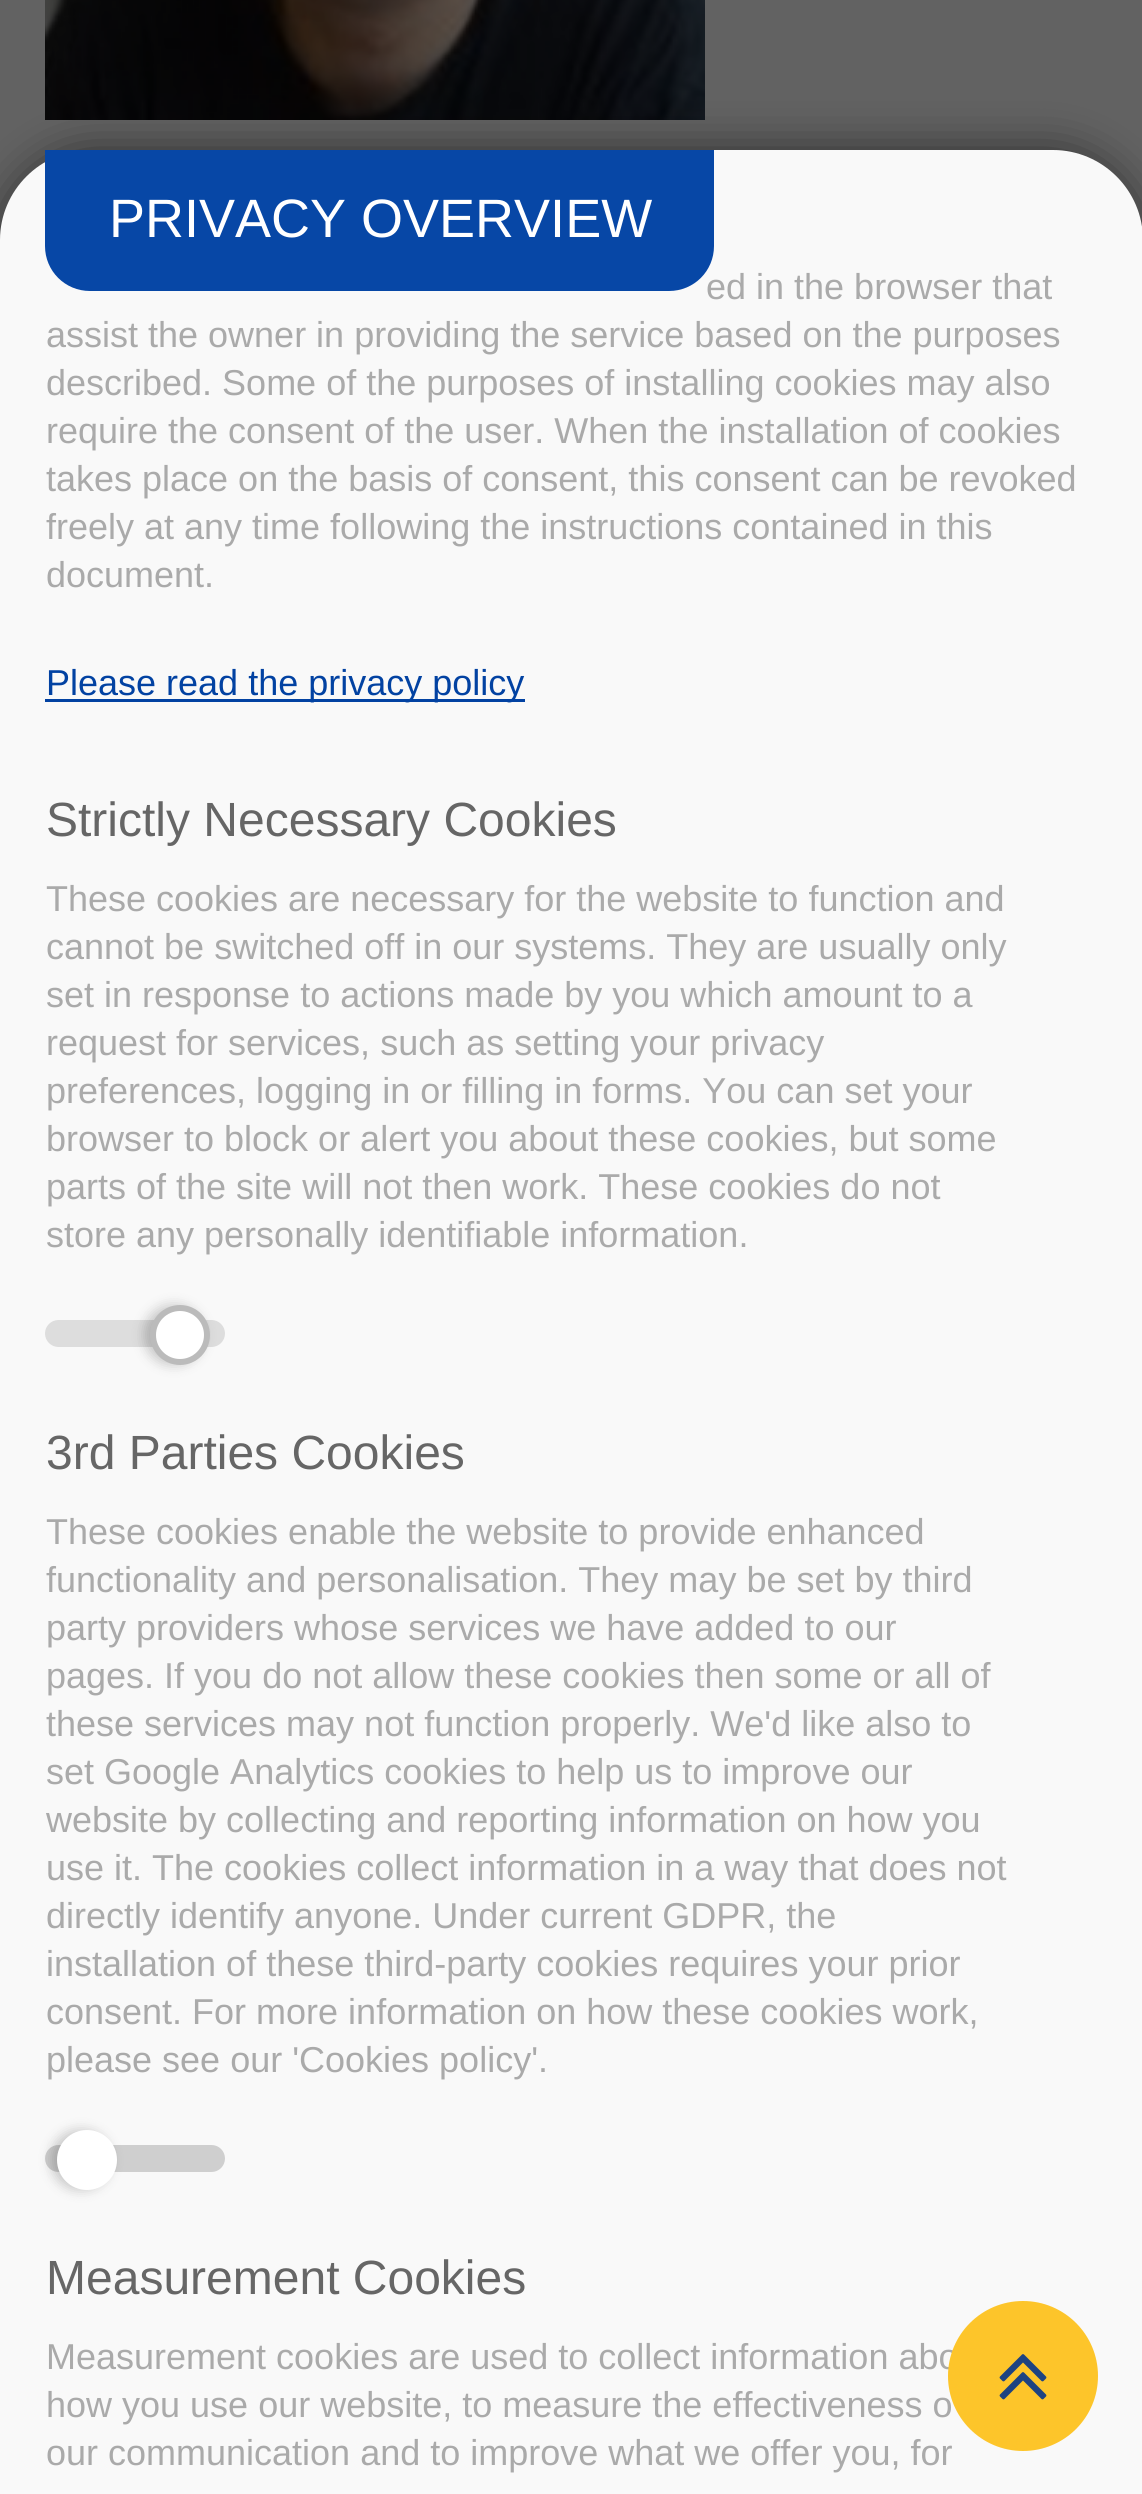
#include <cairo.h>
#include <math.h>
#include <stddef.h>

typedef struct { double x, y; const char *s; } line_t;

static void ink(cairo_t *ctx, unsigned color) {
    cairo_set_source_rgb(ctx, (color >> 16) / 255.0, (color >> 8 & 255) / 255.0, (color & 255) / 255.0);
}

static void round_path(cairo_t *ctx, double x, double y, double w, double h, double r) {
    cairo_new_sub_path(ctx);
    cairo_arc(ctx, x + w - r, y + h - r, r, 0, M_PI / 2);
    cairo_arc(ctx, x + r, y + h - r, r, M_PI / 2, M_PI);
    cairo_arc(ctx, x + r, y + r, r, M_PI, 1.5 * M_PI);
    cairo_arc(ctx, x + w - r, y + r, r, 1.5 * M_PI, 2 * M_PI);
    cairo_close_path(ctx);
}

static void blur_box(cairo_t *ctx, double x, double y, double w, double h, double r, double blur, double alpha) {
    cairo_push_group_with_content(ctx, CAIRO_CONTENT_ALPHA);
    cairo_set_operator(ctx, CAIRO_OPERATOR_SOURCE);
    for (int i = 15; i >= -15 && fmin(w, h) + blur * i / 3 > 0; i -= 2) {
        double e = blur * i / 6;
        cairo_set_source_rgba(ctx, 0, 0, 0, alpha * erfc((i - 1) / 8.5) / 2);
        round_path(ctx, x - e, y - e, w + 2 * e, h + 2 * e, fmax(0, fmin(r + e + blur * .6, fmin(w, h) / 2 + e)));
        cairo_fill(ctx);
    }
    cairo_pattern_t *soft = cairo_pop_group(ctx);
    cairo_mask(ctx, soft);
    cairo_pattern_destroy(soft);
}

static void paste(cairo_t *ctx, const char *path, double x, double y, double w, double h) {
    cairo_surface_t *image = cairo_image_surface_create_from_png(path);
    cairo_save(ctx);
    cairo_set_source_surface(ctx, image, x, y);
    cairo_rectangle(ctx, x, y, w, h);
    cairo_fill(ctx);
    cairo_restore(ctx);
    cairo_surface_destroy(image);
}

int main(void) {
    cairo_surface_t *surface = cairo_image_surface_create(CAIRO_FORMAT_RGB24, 1142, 2494);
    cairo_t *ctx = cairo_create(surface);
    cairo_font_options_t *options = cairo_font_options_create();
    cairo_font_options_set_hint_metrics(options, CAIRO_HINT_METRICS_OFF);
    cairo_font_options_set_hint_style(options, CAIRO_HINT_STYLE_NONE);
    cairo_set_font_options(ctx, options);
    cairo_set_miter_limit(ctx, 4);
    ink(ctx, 0x626262);
    cairo_paint(ctx);
    paste(ctx, "media/1.png", 45, 0, 660, 120);
    ink(ctx, 0x000000);
    blur_box(ctx, 0, 150, 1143, 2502, 90, 22.5, 0.53);
    ink(ctx, 0xF9F9F9);
    cairo_new_path(ctx);
    cairo_move_to(ctx, 90, 150);
    cairo_line_to(ctx, 1053, 150);
    cairo_curve_to(ctx, 1102.5, 150, 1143, 190.5, 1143, 240);
    cairo_line_to(ctx, 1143, 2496);
    cairo_line_to(ctx, 0, 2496);
    cairo_line_to(ctx, 0, 240);
    cairo_curve_to(ctx, 0, 190.5, 40.5, 150, 90, 150);
    cairo_close_path(ctx);
    cairo_fill(ctx);
    cairo_select_font_face(ctx, "Liberation Sans", CAIRO_FONT_SLANT_NORMAL, CAIRO_FONT_WEIGHT_NORMAL);
    cairo_set_font_size(ctx, 36);
    ink(ctx, 0xAAAAAA);
    cairo_move_to(ctx, 706, 299);
    cairo_show_text(ctx, "ed in the browser that");
    ink(ctx, 0x0747A6);
    cairo_new_path(ctx);
    cairo_move_to(ctx, 45, 150);
    cairo_line_to(ctx, 714, 150);
    cairo_line_to(ctx, 714, 246);
    cairo_curve_to(ctx, 714, 271, 694, 291, 669, 291);
    cairo_line_to(ctx, 90, 291);
    cairo_curve_to(ctx, 65, 291, 45, 271, 45, 246);
    cairo_close_path(ctx);
    cairo_fill(ctx);
    cairo_set_font_size(ctx, 54);
    ink(ctx, 0xFFFFFF);
    cairo_move_to(ctx, 109, 237);
    cairo_show_text(ctx, "PRIVACY OVERVIEW");
    cairo_set_font_size(ctx, 36);
    ink(ctx, 0xAAAAAA);
    {
        static const line_t items[] = {
            {46, 347, "assist the owner in providing the service based on the purposes"},
            {46, 395, "described. Some of the purposes of installing cookies may also"},
            {46, 443, "require the consent of the user. When the installation of cookies"},
            {46, 491, "takes place on the basis of consent, this consent can be revoked"},
            {46, 539, "freely at any time following the instructions contained in this"},
            {46, 587, "document."},
        };
        for (size_t i = 0; i < sizeof items / sizeof *items; i++) {
            cairo_move_to(ctx, items[i].x, items[i].y);
            cairo_show_text(ctx, items[i].s);
        }
    }
    ink(ctx, 0x0242A2);
    cairo_rectangle(ctx, 45, 699, 480, 3);
    cairo_fill(ctx);
    cairo_move_to(ctx, 46, 695);
    cairo_show_text(ctx, "Please read the privacy policy");
    cairo_set_font_size(ctx, 48);
    ink(ctx, 0x666666);
    cairo_move_to(ctx, 46, 836);
    cairo_show_text(ctx, "Strictly Necessary Cookies");
    cairo_set_font_size(ctx, 36);
    ink(ctx, 0xAAAAAA);
    {
        static const line_t items[] = {
            {46, 911, "These cookies are necessary for the website to function and"},
            {46, 959, "cannot be switched off in our systems. They are usually only"},
            {46, 1007, "set in response to actions made by you which amount to a"},
            {46, 1055, "request for services, such as setting your privacy"},
            {46, 1103, "preferences, logging in or filling in forms. You can set your"},
            {46, 1151, "browser to block or alert you about these cookies, but some"},
            {46, 1199, "parts of the site will not then work. These cookies do not"},
            {46, 1247, "store any personally identifiable information."},
        };
        for (size_t i = 0; i < sizeof items / sizeof *items; i++) {
            cairo_move_to(ctx, items[i].x, items[i].y);
            cairo_show_text(ctx, items[i].s);
        }
    }
    ink(ctx, 0xDDDDDD);
    round_path(ctx, 45, 1320, 180, 27, 13.5);
    cairo_fill(ctx);
    ink(ctx, 0x000000);
    blur_box(ctx, 144, 1305, 60, 60, 30, 6, 0.2);
    ink(ctx, 0xFFFFFF);
    cairo_arc(ctx, 180, 1335, 27, 0, 2 * M_PI);
    cairo_fill_preserve(ctx);
    ink(ctx, 0xBBBBBB);
    cairo_set_line_width(ctx, 6);
    cairo_stroke(ctx);
    cairo_set_font_size(ctx, 48);
    ink(ctx, 0x666666);
    cairo_move_to(ctx, 46, 1469);
    cairo_show_text(ctx, "3rd Parties Cookies");
    cairo_set_font_size(ctx, 36);
    ink(ctx, 0xAAAAAA);
    {
        static const line_t items[] = {
            {46, 1544, "These cookies enable the website to provide enhanced"},
            {46, 1592, "functionality and personalisation. They may be set by third"},
            {46, 1640, "party providers whose services we have added to our"},
            {46, 1688, "pages. If you do not allow these cookies then some or all of"},
            {46, 1736, "these services may not function properly. We'd like also to"},
            {46, 1784, "set Google Analytics cookies to help us to improve our"},
            {46, 1832, "website by collecting and reporting information on how you"},
            {46, 1880, "use it. The cookies collect information in a way that does not"},
            {46, 1928, "directly identify anyone. Under current GDPR, the"},
            {46, 1976, "installation of these third-party cookies requires your prior"},
            {46, 2024, "consent. For more information on how these cookies work,"},
            {46, 2072, "please see our 'Cookies policy'."},
        };
        for (size_t i = 0; i < sizeof items / sizeof *items; i++) {
            cairo_move_to(ctx, items[i].x, items[i].y);
            cairo_show_text(ctx, items[i].s);
        }
    }
    ink(ctx, 0xCFCFCF);
    round_path(ctx, 45, 2145, 180, 27, 13.5);
    cairo_fill(ctx);
    ink(ctx, 0x000000);
    blur_box(ctx, 51, 2130, 60, 60, 30, 6, 0.2);
    ink(ctx, 0xFFFFFF);
    cairo_arc(ctx, 87, 2160, 27, 0, 2 * M_PI);
    cairo_fill_preserve(ctx);
    cairo_stroke(ctx);
    cairo_set_font_size(ctx, 48);
    ink(ctx, 0x666666);
    cairo_move_to(ctx, 46, 2294);
    cairo_show_text(ctx, "Measurement Cookies");
    cairo_set_font_size(ctx, 36);
    ink(ctx, 0xAAAAAA);
    {
        static const line_t items[] = {
            {46, 2369, "Measurement cookies are used to collect information abo"},
            {46, 2417, "how you use our website, to measure the effectiveness o"},
            {46, 2465, "our communication and to improve what we offer you, for"},
        };
        for (size_t i = 0; i < sizeof items / sizeof *items; i++) {
            cairo_move_to(ctx, items[i].x, items[i].y);
            cairo_show_text(ctx, items[i].s);
        }
    }
    ink(ctx, 0xFDC52A);
    cairo_new_path(ctx);
    cairo_arc(ctx, 1023, 2376, 72, 0, 2 * M_PI);
    cairo_fill_preserve(ctx);
    cairo_stroke(ctx);
    paste(ctx, "media/2.png", 999, 2354, 48, 46);
    cairo_surface_write_to_png(surface, "image.png");
    cairo_font_options_destroy(options);
    cairo_destroy(ctx);
    cairo_surface_destroy(surface);
    return 0;
}
